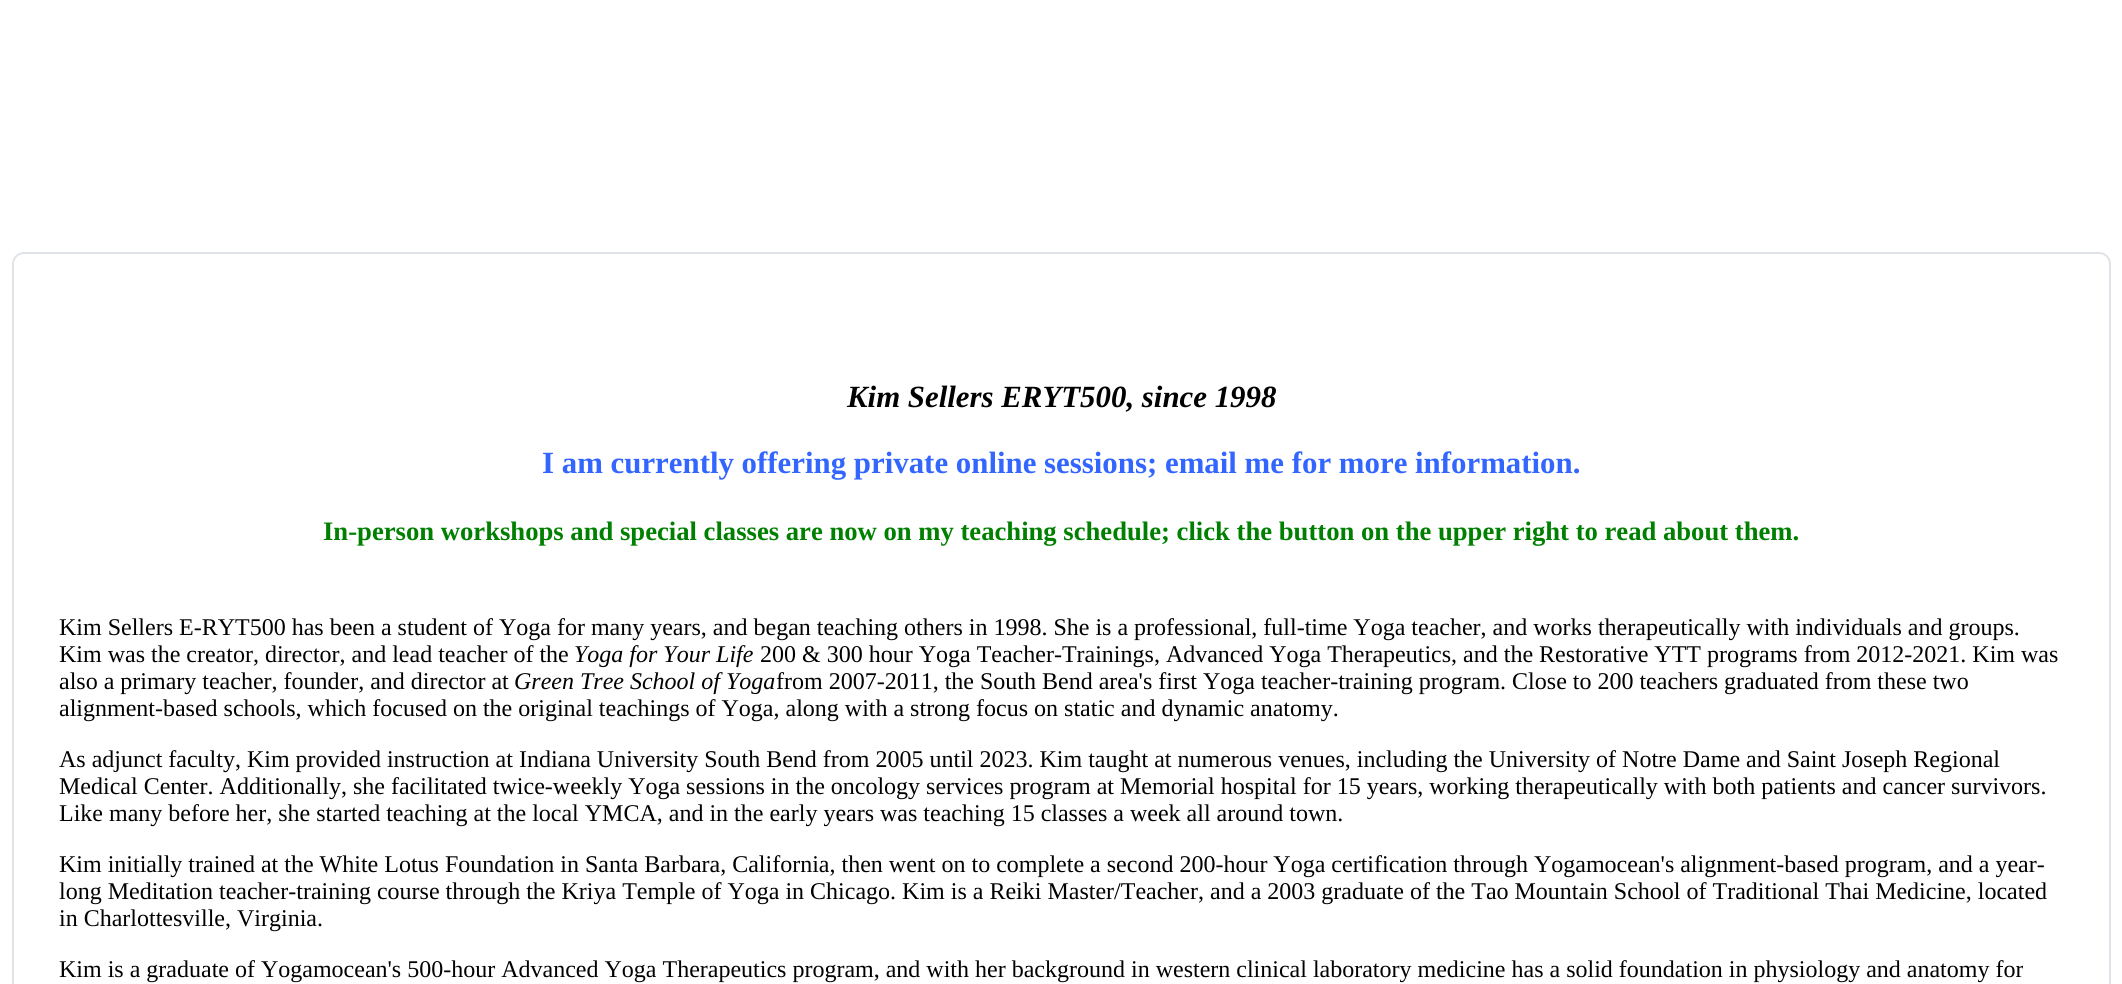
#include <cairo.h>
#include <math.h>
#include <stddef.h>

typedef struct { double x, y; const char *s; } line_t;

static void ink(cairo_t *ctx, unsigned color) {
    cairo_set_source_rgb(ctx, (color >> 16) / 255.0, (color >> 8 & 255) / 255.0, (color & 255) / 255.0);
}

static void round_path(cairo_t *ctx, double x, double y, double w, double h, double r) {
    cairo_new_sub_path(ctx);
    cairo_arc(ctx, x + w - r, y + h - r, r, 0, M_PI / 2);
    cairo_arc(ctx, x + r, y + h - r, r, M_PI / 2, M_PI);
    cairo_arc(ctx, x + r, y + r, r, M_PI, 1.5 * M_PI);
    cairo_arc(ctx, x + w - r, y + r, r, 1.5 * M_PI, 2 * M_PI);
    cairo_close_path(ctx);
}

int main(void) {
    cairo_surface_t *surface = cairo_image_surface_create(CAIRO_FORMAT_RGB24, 2122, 984);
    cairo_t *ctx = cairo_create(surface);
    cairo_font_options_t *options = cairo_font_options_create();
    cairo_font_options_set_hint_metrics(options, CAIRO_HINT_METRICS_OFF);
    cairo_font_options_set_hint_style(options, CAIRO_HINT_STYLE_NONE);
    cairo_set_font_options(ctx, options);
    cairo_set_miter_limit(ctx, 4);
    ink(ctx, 0xFFFFFF);
    cairo_paint(ctx);
    round_path(ctx, 13, 253, 2097, 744, 11);
    ink(ctx, 0xDFE3E7);
    cairo_stroke(ctx);
    cairo_select_font_face(ctx, "Liberation Serif", CAIRO_FONT_SLANT_ITALIC, CAIRO_FONT_WEIGHT_BOLD);
    cairo_set_font_size(ctx, 30.85);
    ink(ctx, 0x000000);
    cairo_move_to(ctx, 847, 407);
    cairo_show_text(ctx, "Kim Sellers ERYT500, since 1998");
    cairo_select_font_face(ctx, "Liberation Serif", CAIRO_FONT_SLANT_NORMAL, CAIRO_FONT_WEIGHT_BOLD);
    ink(ctx, 0x3366FF);
    cairo_move_to(ctx, 542, 473);
    cairo_show_text(ctx, "I am currently offering private online sessions; email me for more information.");
    cairo_set_font_size(ctx, 26.65);
    ink(ctx, 0x008000);
    cairo_move_to(ctx, 323, 540);
    cairo_show_text(ctx, "In-person workshops and special classes are now on my teaching schedule; click the button on the upper right to read about them.");
    cairo_select_font_face(ctx, "Liberation Serif", CAIRO_FONT_SLANT_NORMAL, CAIRO_FONT_WEIGHT_NORMAL);
    cairo_set_font_size(ctx, 24);
    ink(ctx, 0x000000);
    cairo_move_to(ctx, 59, 635);
    cairo_show_text(ctx, "Kim Sellers E-RYT500 has been a student of Yoga for many years, and began teaching others in 1998. She is a professional, full-time Yoga teacher, and works therapeutically with individuals and groups.");
    cairo_move_to(ctx, 59, 662);
    cairo_show_text(ctx, "Kim was the creator, director, and lead teacher of the");
    cairo_select_font_face(ctx, "Liberation Serif", CAIRO_FONT_SLANT_ITALIC, CAIRO_FONT_WEIGHT_NORMAL);
    cairo_move_to(ctx, 574, 662);
    cairo_show_text(ctx, "Yoga for Your Life");
    cairo_select_font_face(ctx, "Liberation Serif", CAIRO_FONT_SLANT_NORMAL, CAIRO_FONT_WEIGHT_NORMAL);
    cairo_move_to(ctx, 760, 662);
    cairo_show_text(ctx, "200 & 300 hour Yoga Teacher-Trainings, Advanced Yoga Therapeutics, and the Restorative YTT programs from 2012-2021. Kim was");
    cairo_move_to(ctx, 59, 689);
    cairo_show_text(ctx, "also a primary teacher, founder, and director at");
    cairo_select_font_face(ctx, "Liberation Serif", CAIRO_FONT_SLANT_ITALIC, CAIRO_FONT_WEIGHT_NORMAL);
    cairo_move_to(ctx, 514, 689);
    cairo_show_text(ctx, "Green Tree School of Yoga");
    cairo_select_font_face(ctx, "Liberation Serif", CAIRO_FONT_SLANT_NORMAL, CAIRO_FONT_WEIGHT_NORMAL);
    {
        static const line_t items[] = {
            {776, 689, "from 2007-2011, the South Bend area's first Yoga teacher-training program. Close to 200 teachers graduated from these two"},
            {59, 716, "alignment-based schools, which focused on the original teachings of Yoga, along with a strong focus on static and dynamic anatomy."},
            {59, 767, "As adjunct faculty, Kim provided instruction at Indiana University South Bend from 2005 until 2023. Kim taught at numerous venues, including the University of Notre Dame and Saint Joseph Regional"},
            {59, 794, "Medical Center. Additionally, she facilitated twice-weekly Yoga sessions in the oncology services program at Memorial hospital for 15 years, working therapeutically with both patients and cancer survivors."},
            {59, 821, "Like many before her, she started teaching at the local YMCA, and in the early years was teaching 15 classes a week all around town."},
            {59, 872, "Kim initially trained at the White Lotus Foundation in Santa Barbara, California, then went on to complete a second 200-hour Yoga certification through Yogamocean's alignment-based program, and a year-"},
            {59, 899, "long Meditation teacher-training course through the Kriya Temple of Yoga in Chicago. Kim is a Reiki Master/Teacher, and a 2003 graduate of the Tao Mountain School of Traditional Thai Medicine, located"},
            {59, 926, "in Charlottesville, Virginia."},
            {59, 977, "Kim is a graduate of Yogamocean's 500-hour Advanced Yoga Therapeutics program, and with her background in western clinical laboratory medicine has a solid foundation in physiology and anatomy for"},
        };
        for (size_t i = 0; i < sizeof items / sizeof *items; i++) {
            cairo_move_to(ctx, items[i].x, items[i].y);
            cairo_show_text(ctx, items[i].s);
        }
    }
    cairo_surface_write_to_png(surface, "image.png");
    cairo_font_options_destroy(options);
    cairo_destroy(ctx);
    cairo_surface_destroy(surface);
    return 0;
}
